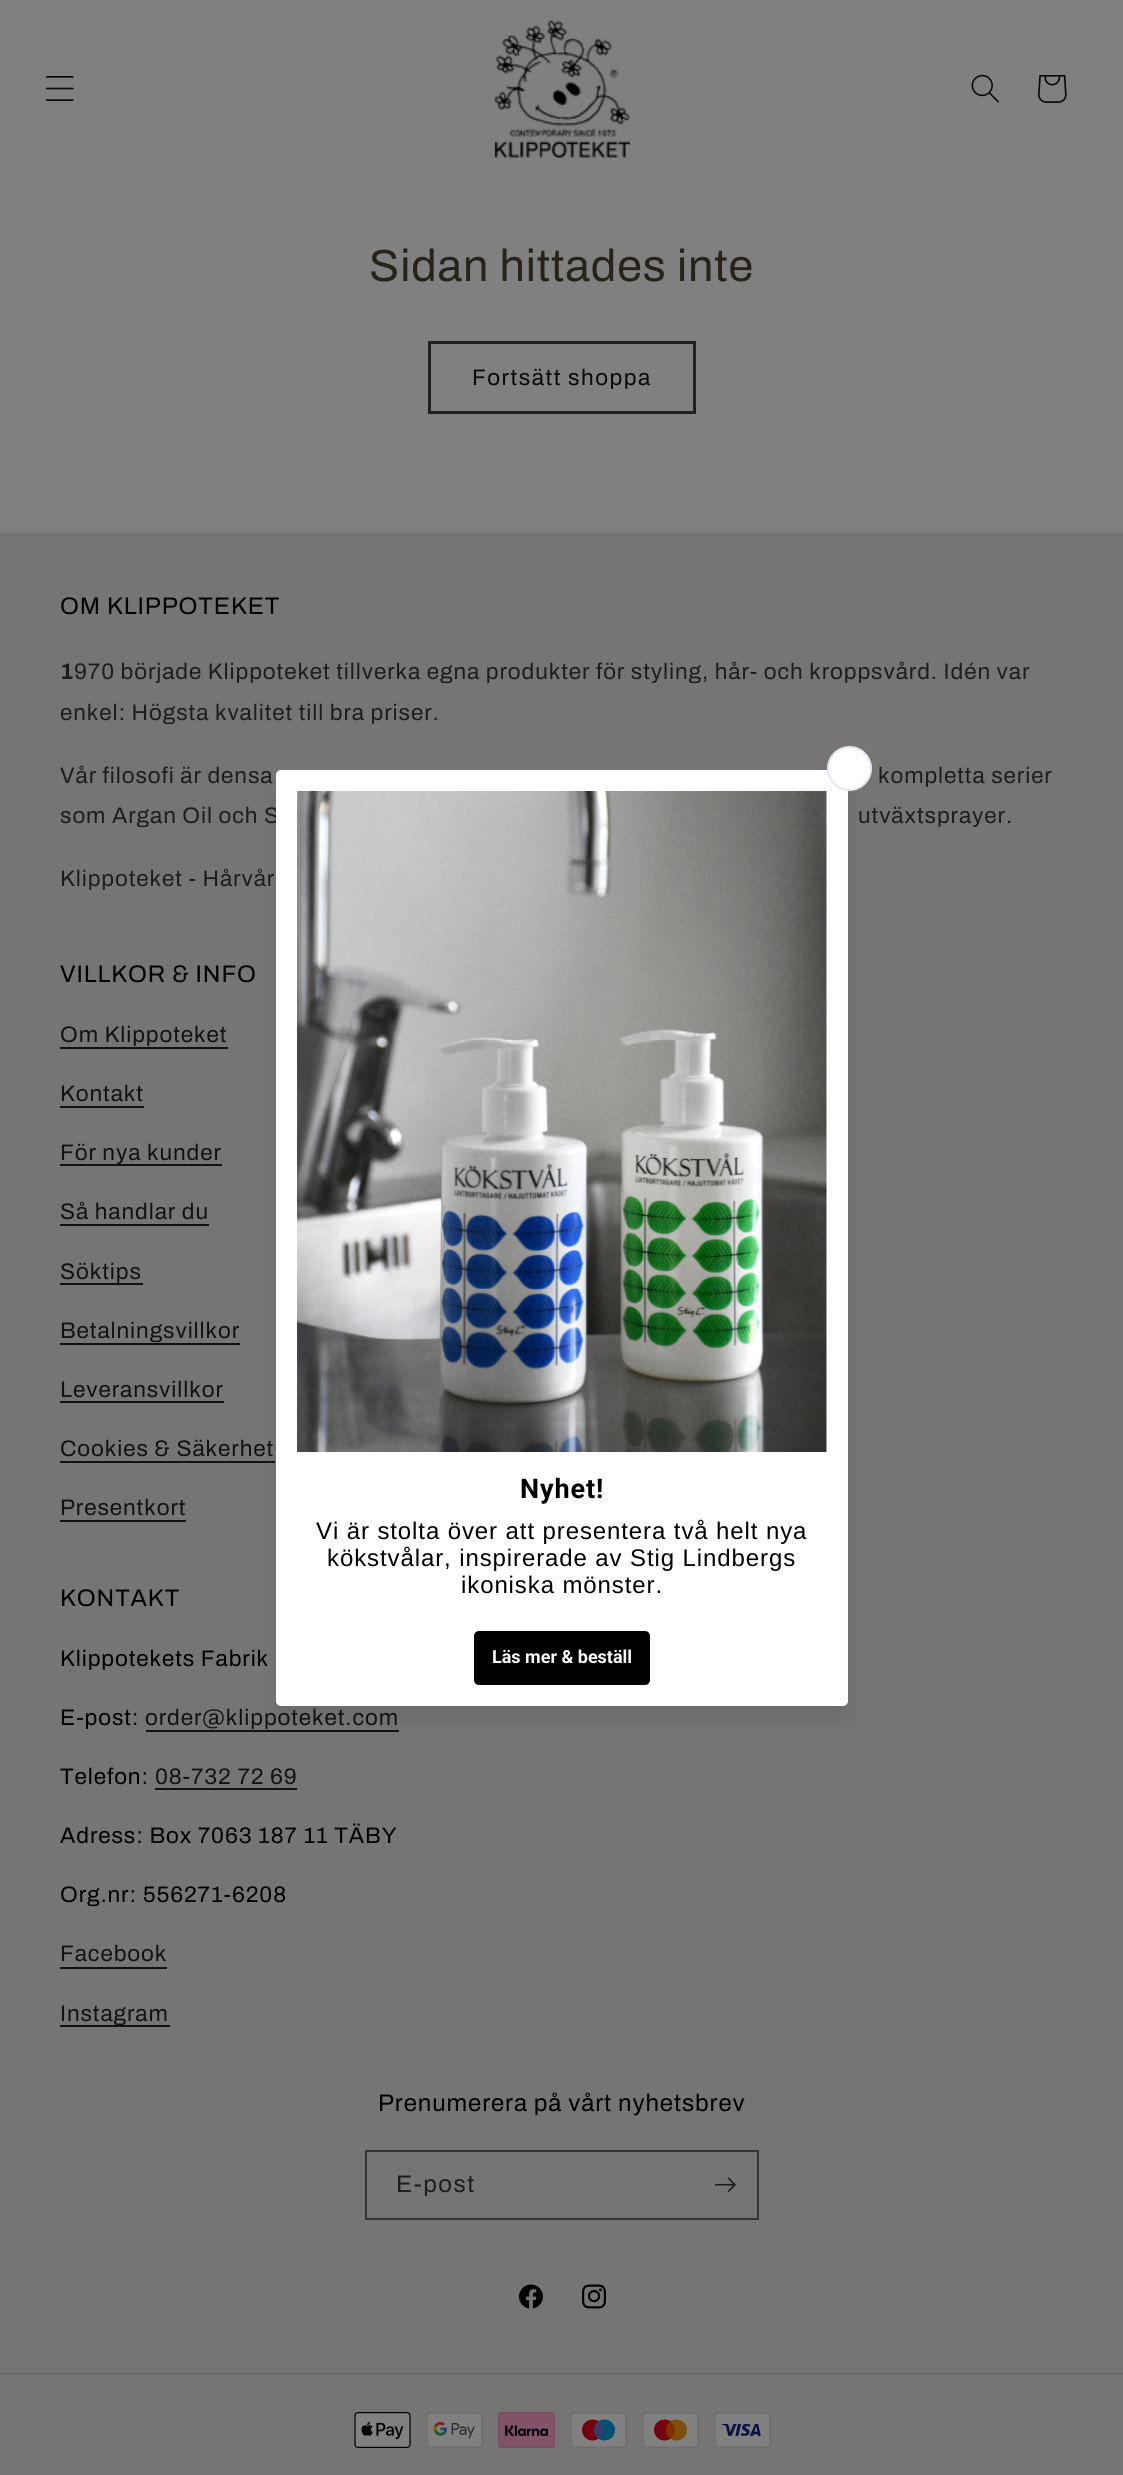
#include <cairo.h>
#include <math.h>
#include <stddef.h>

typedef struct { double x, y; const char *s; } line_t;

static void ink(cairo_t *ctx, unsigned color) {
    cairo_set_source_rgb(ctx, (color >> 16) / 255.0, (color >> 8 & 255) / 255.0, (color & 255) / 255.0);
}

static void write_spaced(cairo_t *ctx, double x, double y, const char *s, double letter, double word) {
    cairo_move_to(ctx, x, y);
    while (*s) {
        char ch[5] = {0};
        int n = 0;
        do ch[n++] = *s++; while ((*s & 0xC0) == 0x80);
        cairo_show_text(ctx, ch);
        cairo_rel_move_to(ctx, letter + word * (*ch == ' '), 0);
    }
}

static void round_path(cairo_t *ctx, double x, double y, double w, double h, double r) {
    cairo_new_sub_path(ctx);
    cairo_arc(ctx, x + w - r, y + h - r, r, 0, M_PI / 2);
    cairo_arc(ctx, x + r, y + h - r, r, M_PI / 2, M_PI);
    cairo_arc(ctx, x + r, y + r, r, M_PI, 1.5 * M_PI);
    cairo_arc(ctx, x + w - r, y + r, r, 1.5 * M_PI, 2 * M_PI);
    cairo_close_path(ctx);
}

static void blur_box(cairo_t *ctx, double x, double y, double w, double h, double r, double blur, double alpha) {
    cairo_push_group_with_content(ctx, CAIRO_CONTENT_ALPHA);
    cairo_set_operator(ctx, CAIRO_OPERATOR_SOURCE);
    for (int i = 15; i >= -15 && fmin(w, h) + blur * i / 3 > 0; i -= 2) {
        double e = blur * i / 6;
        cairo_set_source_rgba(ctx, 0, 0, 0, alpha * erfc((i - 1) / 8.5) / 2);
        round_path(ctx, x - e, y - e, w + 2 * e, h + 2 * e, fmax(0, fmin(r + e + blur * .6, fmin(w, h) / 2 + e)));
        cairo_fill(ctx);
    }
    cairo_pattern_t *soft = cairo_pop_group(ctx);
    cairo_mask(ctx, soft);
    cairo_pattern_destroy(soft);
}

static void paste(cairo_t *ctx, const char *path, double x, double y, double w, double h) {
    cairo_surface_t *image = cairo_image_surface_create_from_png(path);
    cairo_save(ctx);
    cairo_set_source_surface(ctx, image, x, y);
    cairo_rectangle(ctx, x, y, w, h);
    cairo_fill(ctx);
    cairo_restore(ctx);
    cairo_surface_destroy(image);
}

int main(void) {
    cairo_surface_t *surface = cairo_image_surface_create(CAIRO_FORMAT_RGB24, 1123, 2475);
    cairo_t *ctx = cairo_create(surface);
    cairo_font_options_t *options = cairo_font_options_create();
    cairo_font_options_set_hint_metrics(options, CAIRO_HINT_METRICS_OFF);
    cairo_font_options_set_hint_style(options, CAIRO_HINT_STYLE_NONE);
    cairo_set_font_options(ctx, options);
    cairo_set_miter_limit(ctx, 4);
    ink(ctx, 0x808080);
    cairo_paint(ctx);
    paste(ctx, "media/1.png", 45, 76, 29, 25);
    paste(ctx, "media/2.png", 494, 20, 136, 138);
    paste(ctx, "media/3.png", 971, 74, 28, 29);
    paste(ctx, "media/4.png", 1038, 75, 29, 28);
    cairo_select_font_face(ctx, "Archivo", CAIRO_FONT_SLANT_NORMAL, CAIRO_FONT_WEIGHT_NORMAL);
    cairo_set_font_size(ctx, 45);
    ink(ctx, 0x28231A);
    write_spaced(ctx, 369, 281, "Sidan hittades inte", 0.9, 0);
    cairo_rectangle(ctx, 429.5, 342.5, 265, 70);
    ink(ctx, 0x212121);
    cairo_set_line_width(ctx, 3);
    cairo_stroke(ctx);
    cairo_set_font_size(ctx, 22.5);
    ink(ctx, 0x090909);
    write_spaced(ctx, 472, 385, "Fortsätt shoppa", 1.5, 0);
    ink(ctx, 0x777573);
    cairo_rectangle(ctx, 0, 533, 1123, 1942);
    cairo_fill(ctx);
    cairo_set_font_size(ctx, 24);
    ink(ctx, 0x000000);
    write_spaced(ctx, 60, 614, "OM KLIPPOTEKET", 0.9, 0);
    cairo_select_font_face(ctx, "Archivo", CAIRO_FONT_SLANT_NORMAL, CAIRO_FONT_WEIGHT_BOLD);
    cairo_set_font_size(ctx, 22.5);
    ink(ctx, 0x1E1D1D);
    write_spaced(ctx, 60, 679, "1", 0.9, 0);
    cairo_select_font_face(ctx, "Archivo", CAIRO_FONT_SLANT_NORMAL, CAIRO_FONT_WEIGHT_NORMAL);
    {
        static const line_t items[] = {
            {74, 679, "970 började Klippoteket tillverka egna produkter för styling, hår- och kroppsvård. Idén var"},
            {60, 720, "enkel: Högsta kvalitet till bra priser."},
            {60, 783, "Vår filosofi är densa"},
            {878, 783, "kompletta serier"},
            {60, 823, "som Argan Oil och S"},
            {858, 823, "utväxtsprayer."},
            {60, 886, "Klippoteket - Hårvår"},
        };
        for (size_t i = 0; i < sizeof items / sizeof *items; i++) {
            write_spaced(ctx, items[i].x, items[i].y, items[i].s, 0.9, 0);
        }
    }
    cairo_set_font_size(ctx, 24);
    ink(ctx, 0x000000);
    write_spaced(ctx, 60, 982, "VILLKOR & INFO", 0.9, 0);
    cairo_set_font_size(ctx, 22.5);
    ink(ctx, 0x121212);
    write_spaced(ctx, 60, 1042, "Om Klippoteket", 0.9, 0);
    cairo_rectangle(ctx, 60, 1047, 168, 2);
    cairo_fill(ctx);
    write_spaced(ctx, 60, 1101, "Kontakt", 0.9, 0);
    cairo_rectangle(ctx, 60, 1106, 84, 2);
    cairo_fill(ctx);
    cairo_rectangle(ctx, 60, 1164, 162, 2);
    cairo_fill(ctx);
    write_spaced(ctx, 60, 1160, "För nya kunder", 0.9, 0);
    write_spaced(ctx, 60, 1219, "Så handlar du", 0.9, 0);
    cairo_rectangle(ctx, 60, 1224, 149, 2);
    cairo_fill(ctx);
    write_spaced(ctx, 60, 1279, "Söktips", 0.9, 0);
    cairo_rectangle(ctx, 60, 1283, 83, 2);
    cairo_fill(ctx);
    write_spaced(ctx, 60, 1338, "Betalningsvillkor", 0.9, 0);
    cairo_rectangle(ctx, 60, 1343, 180, 2);
    cairo_fill(ctx);
    write_spaced(ctx, 60, 1397, "Leveransvillkor", 0.9, 0);
    cairo_rectangle(ctx, 60, 1401, 164, 2);
    cairo_fill(ctx);
    write_spaced(ctx, 60, 1456, "Cookies & Säkerhet", 0.9, 0);
    cairo_rectangle(ctx, 60, 1461, 215, 2);
    cairo_fill(ctx);
    write_spaced(ctx, 60, 1515, "Presentkort", 0.9, 0);
    cairo_rectangle(ctx, 60, 1520, 126, 2);
    cairo_fill(ctx);
    cairo_set_font_size(ctx, 24);
    ink(ctx, 0x000000);
    write_spaced(ctx, 60, 1606, "KONTAKT", 0.9, 0);
    cairo_set_font_size(ctx, 22.5);
    write_spaced(ctx, 60, 1666, "Klippotekets Fabrik", 0.9, 0);
    write_spaced(ctx, 60, 1725, "E-post:", 0.9, 0);
    ink(ctx, 0x121212);
    write_spaced(ctx, 145, 1725, "order@klippoteket.com", 0.9, 0);
    cairo_rectangle(ctx, 146, 1730, 253, 2);
    cairo_fill(ctx);
    ink(ctx, 0x000000);
    write_spaced(ctx, 60, 1784, "Telefon:", 0.9, 0);
    ink(ctx, 0x121212);
    write_spaced(ctx, 155, 1784, "08-732 72 69", 0.9, 0);
    cairo_rectangle(ctx, 155, 1788, 142, 2);
    cairo_fill(ctx);
    ink(ctx, 0x000000);
    write_spaced(ctx, 60, 1843, "Adress: Box 7063 187 11 TÄBY", 0.9, 0);
    write_spaced(ctx, 60, 1902, "Org.nr: 556271-6208", 0.9, 0);
    ink(ctx, 0x121212);
    write_spaced(ctx, 60, 1961, "Facebook", 0.9, 0);
    cairo_rectangle(ctx, 60, 1967, 107, 2);
    cairo_fill(ctx);
    cairo_rectangle(ctx, 60, 2025, 110, 2);
    cairo_fill(ctx);
    write_spaced(ctx, 60, 2021, "Instagram", 0.9, 0);
    cairo_set_font_size(ctx, 24);
    ink(ctx, 0x000000);
    write_spaced(ctx, 378, 2111, "Prenumerera på vårt nyhetsbrev", 0.9, 0);
    cairo_rectangle(ctx, 366, 2151, 392, 68);
    ink(ctx, 0x363534);
    cairo_set_line_width(ctx, 2);
    cairo_stroke(ctx);
    ink(ctx, 0x1E1D1D);
    write_spaced(ctx, 396, 2192, "E-post", 1.5, 0);
    paste(ctx, "media/5.png", 714, 2177, 22, 15);
    paste(ctx, "media/6.png", 519, 2284, 24, 25);
    paste(ctx, "media/7.png", 582, 2284, 24, 25);
    ink(ctx, 0x6D6B6A);
    cairo_rectangle(ctx, 0, 2373, 1123, 2);
    cairo_fill(ctx);
    paste(ctx, "media/8.png", 354, 2412, 57, 36);
    paste(ctx, "media/9.png", 426, 2412, 57, 36);
    paste(ctx, "media/10.png", 498, 2412, 57, 36);
    paste(ctx, "media/11.png", 570, 2412, 57, 36);
    paste(ctx, "media/12.png", 642, 2412, 57, 36);
    paste(ctx, "media/13.png", 714, 2412, 57, 36);
    ink(ctx, 0x000000);
    blur_box(ctx, 281, 789, 562, 927, 0, 11, 0.1);
    ink(ctx, 0xFFFFFF);
    round_path(ctx, 276, 770, 572, 936, 5);
    cairo_fill(ctx);
    cairo_arc(ctx, 849.5, 768.5, 21.5, 0, 2 * M_PI);
    cairo_fill_preserve(ctx);
    ink(ctx, 0xE2E8F0);
    cairo_stroke(ctx);
    paste(ctx, "media/14.png", 297, 791, 530, 661);
    cairo_select_font_face(ctx, "Roboto", CAIRO_FONT_SLANT_NORMAL, CAIRO_FONT_WEIGHT_BOLD);
    cairo_set_font_size(ctx, 27);
    ink(ctx, 0x000000);
    write_spaced(ctx, 520, 1498, "Nyhet!", 0.9, 0);
    cairo_select_font_face(ctx, "Liberation Sans", CAIRO_FONT_SLANT_NORMAL, CAIRO_FONT_WEIGHT_NORMAL);
    cairo_set_font_size(ctx, 24);
    {
        static const line_t items[] = {
            {316, 1539, "Vi är stolta över att presentera två helt nya"},
            {327, 1566, "kökstvålar, inspirerade av Stig Lindbergs"},
            {461, 1593, "ikoniska mönster."},
        };
        for (size_t i = 0; i < sizeof items / sizeof *items; i++) {
            write_spaced(ctx, items[i].x, items[i].y, items[i].s, 0.9, 0);
        }
    }
    round_path(ctx, 474, 1631, 176, 54, 5);
    cairo_fill(ctx);
    cairo_select_font_face(ctx, "Roboto", CAIRO_FONT_SLANT_NORMAL, CAIRO_FONT_WEIGHT_BOLD);
    cairo_set_font_size(ctx, 18);
    ink(ctx, 0xFFFFFF);
    cairo_move_to(ctx, 492, 1663);
    cairo_show_text(ctx, "Läs mer & beställ");
    cairo_surface_write_to_png(surface, "image.png");
    cairo_font_options_destroy(options);
    cairo_destroy(ctx);
    cairo_surface_destroy(surface);
    return 0;
}
